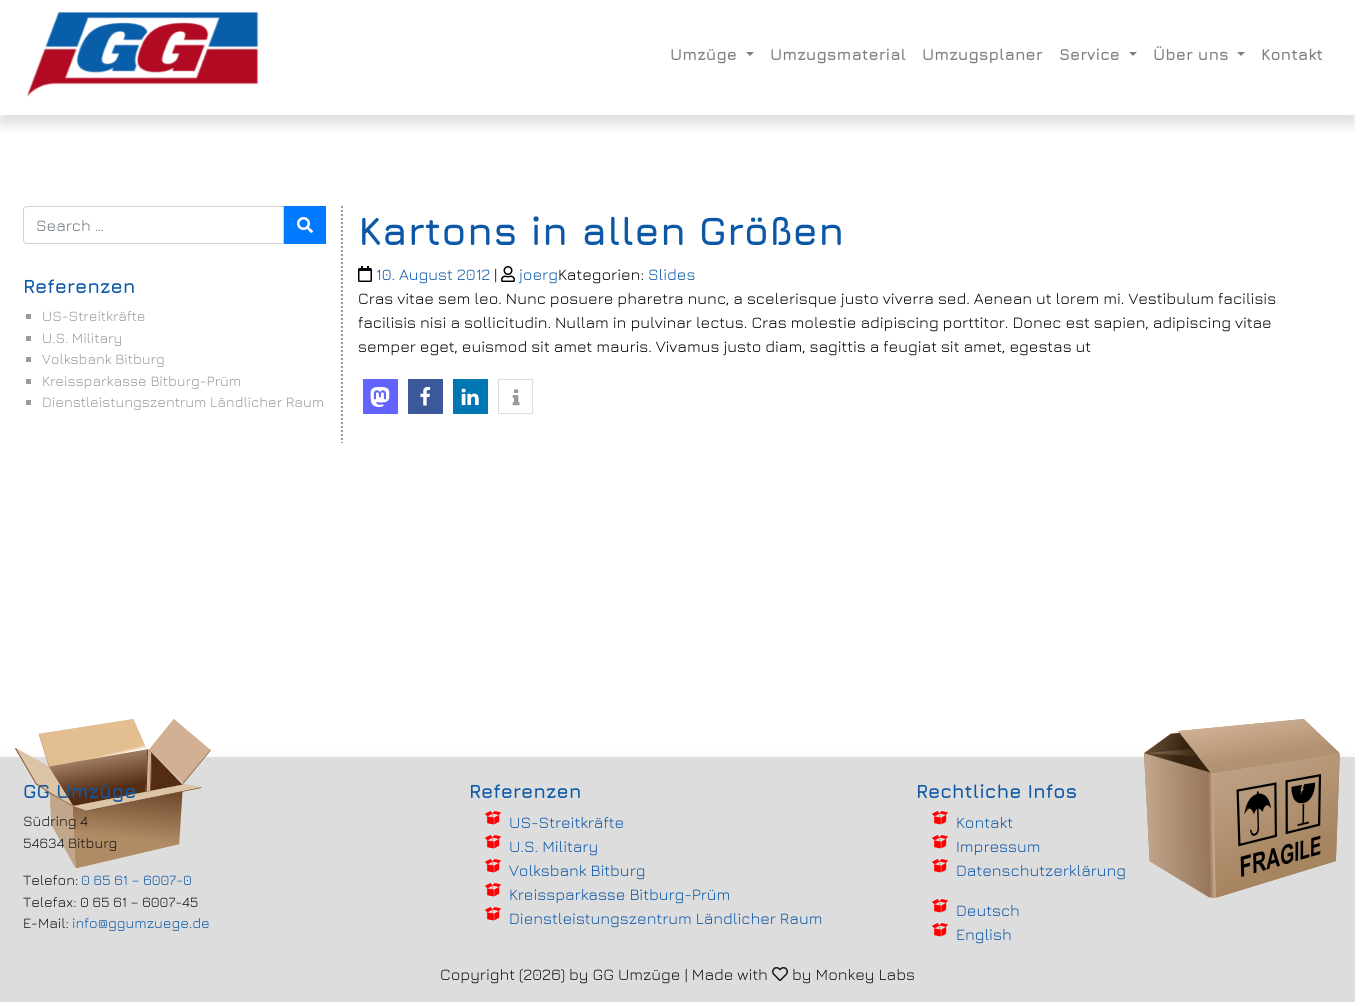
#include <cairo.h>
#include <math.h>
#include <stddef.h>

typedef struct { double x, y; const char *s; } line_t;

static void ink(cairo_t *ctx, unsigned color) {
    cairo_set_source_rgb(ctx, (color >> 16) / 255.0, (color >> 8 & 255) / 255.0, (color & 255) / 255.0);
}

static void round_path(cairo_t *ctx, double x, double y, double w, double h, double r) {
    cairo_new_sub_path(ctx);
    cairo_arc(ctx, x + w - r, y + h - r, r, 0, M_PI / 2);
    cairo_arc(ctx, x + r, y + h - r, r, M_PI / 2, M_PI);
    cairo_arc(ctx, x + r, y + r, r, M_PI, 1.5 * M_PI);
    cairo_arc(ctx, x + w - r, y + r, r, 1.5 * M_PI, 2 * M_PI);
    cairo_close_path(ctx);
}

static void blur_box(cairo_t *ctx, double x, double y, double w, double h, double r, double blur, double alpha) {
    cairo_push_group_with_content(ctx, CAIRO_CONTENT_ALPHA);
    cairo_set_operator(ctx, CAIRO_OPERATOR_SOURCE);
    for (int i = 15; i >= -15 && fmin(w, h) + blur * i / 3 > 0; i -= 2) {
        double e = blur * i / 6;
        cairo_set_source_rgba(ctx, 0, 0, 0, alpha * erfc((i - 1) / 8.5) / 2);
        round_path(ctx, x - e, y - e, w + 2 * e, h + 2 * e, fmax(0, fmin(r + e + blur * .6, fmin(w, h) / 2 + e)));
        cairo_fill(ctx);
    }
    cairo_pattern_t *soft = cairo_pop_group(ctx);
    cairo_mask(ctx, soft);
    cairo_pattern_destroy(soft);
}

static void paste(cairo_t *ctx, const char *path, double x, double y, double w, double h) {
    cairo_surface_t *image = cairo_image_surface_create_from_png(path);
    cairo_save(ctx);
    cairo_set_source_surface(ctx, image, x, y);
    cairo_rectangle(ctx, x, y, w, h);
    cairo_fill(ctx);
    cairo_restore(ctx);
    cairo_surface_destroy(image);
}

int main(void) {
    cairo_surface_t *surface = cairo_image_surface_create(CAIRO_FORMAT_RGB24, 1355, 1002);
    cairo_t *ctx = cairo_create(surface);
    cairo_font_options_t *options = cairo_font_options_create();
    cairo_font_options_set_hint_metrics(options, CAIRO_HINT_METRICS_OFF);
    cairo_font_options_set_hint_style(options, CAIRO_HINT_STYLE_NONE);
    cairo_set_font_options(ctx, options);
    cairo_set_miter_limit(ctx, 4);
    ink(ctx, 0xFFFFFF);
    cairo_paint(ctx);
    cairo_save(ctx);
    cairo_rectangle(ctx, 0, 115, 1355, 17);
    cairo_clip(ctx);
    ink(ctx, 0x000000);
    blur_box(ctx, 0, 8, 1355, 115, 0, 8, 0.15);
    cairo_restore(ctx);
    paste(ctx, "media/1.png", 27, 12, 232, 85);
    cairo_select_font_face(ctx, "Jura", CAIRO_FONT_SLANT_NORMAL, CAIRO_FONT_WEIGHT_BOLD);
    cairo_set_font_size(ctx, 16);
    ink(ctx, 0x808080);
    cairo_move_to(ctx, 670, 60);
    cairo_show_text(ctx, "Umzüge");
    cairo_new_path(ctx);
    cairo_move_to(ctx, 746, 52);
    cairo_line_to(ctx, 754, 52);
    cairo_line_to(ctx, 750, 56);
    cairo_close_path(ctx);
    cairo_fill(ctx);
    {
        static const line_t items[] = {
            {770, 60, "Umzugsmaterial"},
            {922, 60, "Umzugsplaner"},
            {1059, 60, "Service"},
        };
        for (size_t i = 0; i < sizeof items / sizeof *items; i++) {
            cairo_move_to(ctx, items[i].x, items[i].y);
            cairo_show_text(ctx, items[i].s);
        }
    }
    cairo_new_path(ctx);
    cairo_move_to(ctx, 1129, 52);
    cairo_line_to(ctx, 1137, 52);
    cairo_line_to(ctx, 1133, 56);
    cairo_close_path(ctx);
    cairo_fill(ctx);
    cairo_move_to(ctx, 1153, 60);
    cairo_show_text(ctx, "Über uns");
    cairo_new_path(ctx);
    cairo_move_to(ctx, 1237, 52);
    cairo_line_to(ctx, 1245, 52);
    cairo_line_to(ctx, 1241, 56);
    cairo_close_path(ctx);
    cairo_fill(ctx);
    cairo_move_to(ctx, 1261, 60);
    cairo_show_text(ctx, "Kontakt");
    cairo_new_path(ctx);
    cairo_move_to(ctx, 342, 206);
    cairo_line_to(ctx, 342, 443);
    ink(ctx, 0x999999);
    cairo_set_dash(ctx, (double[]){2, 2}, 2, 0);
    cairo_stroke(ctx);
    cairo_new_path(ctx);
    cairo_move_to(ctx, 27, 206.5);
    cairo_line_to(ctx, 283.5, 206.5);
    cairo_line_to(ctx, 283.5, 243.5);
    cairo_line_to(ctx, 27, 243.5);
    cairo_curve_to(ctx, 25, 243.5, 23.5, 242, 23.5, 240);
    cairo_line_to(ctx, 23.5, 210);
    cairo_curve_to(ctx, 23.5, 208, 25, 206.5, 27, 206.5);
    cairo_close_path(ctx);
    ink(ctx, 0xCED4DA);
    cairo_set_line_width(ctx, 1);
    cairo_set_dash(ctx, NULL, 0, 0);
    cairo_stroke(ctx);
    cairo_select_font_face(ctx, "Jura", CAIRO_FONT_SLANT_NORMAL, CAIRO_FONT_WEIGHT_NORMAL);
    ink(ctx, 0x6C757D);
    cairo_move_to(ctx, 36, 231);
    cairo_show_text(ctx, "Search …");
    ink(ctx, 0x007BFF);
    cairo_rectangle(ctx, 284, 206, 42, 38);
    cairo_fill(ctx);
    paste(ctx, "media/2.png", 297, 217, 16, 16);
    cairo_select_font_face(ctx, "Jura", CAIRO_FONT_SLANT_NORMAL, CAIRO_FONT_WEIGHT_BOLD);
    cairo_set_font_size(ctx, 19.25);
    ink(ctx, 0x0C58A6);
    cairo_move_to(ctx, 23, 293);
    cairo_show_text(ctx, "Referenzen");
    ink(ctx, 0x999999);
    cairo_rectangle(ctx, 26, 314, 5, 5);
    cairo_fill(ctx);
    cairo_select_font_face(ctx, "Jura", CAIRO_FONT_SLANT_NORMAL, CAIRO_FONT_WEIGHT_NORMAL);
    cairo_set_font_size(ctx, 14.4);
    cairo_move_to(ctx, 42, 321);
    cairo_show_text(ctx, "US-Streitkräfte");
    cairo_rectangle(ctx, 26, 336, 5, 5);
    cairo_fill(ctx);
    cairo_move_to(ctx, 42, 343);
    cairo_show_text(ctx, "U.S. Military");
    cairo_rectangle(ctx, 26, 357, 5, 5);
    cairo_fill(ctx);
    cairo_move_to(ctx, 42, 364);
    cairo_show_text(ctx, "Volksbank Bitburg");
    cairo_rectangle(ctx, 26, 379, 5, 5);
    cairo_fill(ctx);
    cairo_move_to(ctx, 42, 386);
    cairo_show_text(ctx, "Kreissparkasse Bitburg-Prüm");
    cairo_rectangle(ctx, 26, 400, 5, 5);
    cairo_fill(ctx);
    cairo_move_to(ctx, 42, 407);
    cairo_show_text(ctx, "Dienstleistungszentrum Ländlicher Raum");
    cairo_select_font_face(ctx, "Jura", CAIRO_FONT_SLANT_NORMAL, CAIRO_FONT_WEIGHT_BOLD);
    cairo_set_font_size(ctx, 40);
    ink(ctx, 0x0C58A6);
    cairo_move_to(ctx, 358, 245);
    cairo_show_text(ctx, "Kartons in allen Größen");
    paste(ctx, "media/3.png", 358, 266, 14, 16);
    cairo_select_font_face(ctx, "Jura", CAIRO_FONT_SLANT_NORMAL, CAIRO_FONT_WEIGHT_NORMAL);
    cairo_set_font_size(ctx, 16);
    cairo_move_to(ctx, 376, 280);
    cairo_show_text(ctx, "10. August 2012");
    ink(ctx, 0x000000);
    cairo_move_to(ctx, 494, 280);
    cairo_show_text(ctx, "|");
    paste(ctx, "media/4.png", 501, 266, 14, 16);
    ink(ctx, 0x0C58A6);
    cairo_move_to(ctx, 519, 280);
    cairo_show_text(ctx, "joerg");
    ink(ctx, 0x000000);
    cairo_move_to(ctx, 558, 280);
    cairo_show_text(ctx, "Kategorien:");
    ink(ctx, 0x0C58A6);
    cairo_move_to(ctx, 648, 280);
    cairo_show_text(ctx, "Slides");
    ink(ctx, 0x000000);
    {
        static const line_t items[] = {
            {358, 304, "Cras vitae sem leo. Nunc posuere pharetra nunc, a scelerisque justo viverra sed. Aenean ut lorem mi. Vestibulum facilisis"},
            {358, 328, "facilisis nisi a sollicitudin. Nullam in pulvinar lectus. Cras molestie adipiscing porttitor. Donec est sapien, adipiscing vitae"},
            {358, 352, "semper eget, euismod sit amet mauris. Vivamus justo diam, sagittis a feugiat sit amet, egestas ut"},
        };
        for (size_t i = 0; i < sizeof items / sizeof *items; i++) {
            cairo_move_to(ctx, items[i].x, items[i].y);
            cairo_show_text(ctx, items[i].s);
        }
    }
    ink(ctx, 0x6364FF);
    round_path(ctx, 363, 379, 35, 35, 0.5);
    cairo_fill(ctx);
    paste(ctx, "media/5.png", 370, 387, 20, 20);
    ink(ctx, 0x3B5998);
    round_path(ctx, 408, 379, 35, 35, 0.5);
    cairo_fill(ctx);
    paste(ctx, "media/6.png", 420, 386, 11, 20);
    ink(ctx, 0x0077B5);
    round_path(ctx, 453, 379, 35, 35, 0.5);
    cairo_fill(ctx);
    paste(ctx, "media/7.png", 461, 388, 18, 18);
    cairo_rectangle(ctx, 498.5, 379.5, 34, 34);
    ink(ctx, 0xDDDDDD);
    cairo_stroke(ctx);
    paste(ctx, "media/8.png", 512, 389, 8, 17);
    ink(ctx, 0x000000);
    blur_box(ctx, 0, 765, 1355, 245, 0, 8, 0.15);
    ink(ctx, 0xDDDDDD);
    cairo_rectangle(ctx, 0, 757, 1355, 245);
    cairo_fill(ctx);
    paste(ctx, "media/9.png", 15, 719, 196, 149);
    paste(ctx, "media/10.png", 1144, 719, 196, 179);
    cairo_select_font_face(ctx, "Jura", CAIRO_FONT_SLANT_NORMAL, CAIRO_FONT_WEIGHT_BOLD);
    cairo_set_font_size(ctx, 19.25);
    ink(ctx, 0x0C58A6);
    cairo_move_to(ctx, 23, 798);
    cairo_show_text(ctx, "GG Umzüge");
    cairo_select_font_face(ctx, "Jura", CAIRO_FONT_SLANT_NORMAL, CAIRO_FONT_WEIGHT_NORMAL);
    cairo_set_font_size(ctx, 14.4);
    ink(ctx, 0x141311);
    {
        static const line_t items[] = {
            {23, 826, "Südring 4"},
            {23, 848, "54634 Bitburg"},
            {23, 885, "Telefon:"},
        };
        for (size_t i = 0; i < sizeof items / sizeof *items; i++) {
            cairo_move_to(ctx, items[i].x, items[i].y);
            cairo_show_text(ctx, items[i].s);
        }
    }
    ink(ctx, 0x0C58A6);
    cairo_move_to(ctx, 81, 885);
    cairo_show_text(ctx, "0 65 61 – 6007-0");
    ink(ctx, 0x141311);
    cairo_move_to(ctx, 23, 907);
    cairo_show_text(ctx, "Telefax: 0 65 61 – 6007-45");
    cairo_move_to(ctx, 23, 928);
    cairo_show_text(ctx, "E-Mail:");
    ink(ctx, 0x0C58A6);
    cairo_move_to(ctx, 72, 928);
    cairo_show_text(ctx, "info@ggumzuege.de");
    cairo_select_font_face(ctx, "Jura", CAIRO_FONT_SLANT_NORMAL, CAIRO_FONT_WEIGHT_BOLD);
    cairo_set_font_size(ctx, 19.25);
    cairo_move_to(ctx, 469, 798);
    cairo_show_text(ctx, "Referenzen");
    paste(ctx, "media/11.png", 485, 811, 16, 14);
    cairo_select_font_face(ctx, "Jura", CAIRO_FONT_SLANT_NORMAL, CAIRO_FONT_WEIGHT_NORMAL);
    cairo_set_font_size(ctx, 16);
    cairo_move_to(ctx, 509, 828);
    cairo_show_text(ctx, "US-Streitkräfte");
    paste(ctx, "media/11.png", 485, 835, 16, 14);
    cairo_move_to(ctx, 509, 852);
    cairo_show_text(ctx, "U.S. Military");
    paste(ctx, "media/11.png", 485, 859, 16, 14);
    cairo_move_to(ctx, 509, 876);
    cairo_show_text(ctx, "Volksbank Bitburg");
    paste(ctx, "media/11.png", 485, 883, 16, 14);
    cairo_move_to(ctx, 509, 900);
    cairo_show_text(ctx, "Kreissparkasse Bitburg-Prüm");
    paste(ctx, "media/11.png", 485, 907, 16, 14);
    cairo_move_to(ctx, 509, 924);
    cairo_show_text(ctx, "Dienstleistungszentrum Ländlicher Raum");
    cairo_select_font_face(ctx, "Jura", CAIRO_FONT_SLANT_NORMAL, CAIRO_FONT_WEIGHT_BOLD);
    cairo_set_font_size(ctx, 19.25);
    cairo_move_to(ctx, 916, 798);
    cairo_show_text(ctx, "Rechtliche Infos");
    paste(ctx, "media/11.png", 932, 811, 16, 14);
    cairo_select_font_face(ctx, "Jura", CAIRO_FONT_SLANT_NORMAL, CAIRO_FONT_WEIGHT_NORMAL);
    cairo_set_font_size(ctx, 16);
    cairo_move_to(ctx, 956, 828);
    cairo_show_text(ctx, "Kontakt");
    paste(ctx, "media/11.png", 932, 835, 16, 14);
    cairo_move_to(ctx, 956, 852);
    cairo_show_text(ctx, "Impressum");
    paste(ctx, "media/11.png", 932, 859, 16, 14);
    cairo_move_to(ctx, 956, 876);
    cairo_show_text(ctx, "Datenschutzerklärung");
    paste(ctx, "media/11.png", 932, 899, 16, 14);
    cairo_move_to(ctx, 956, 916);
    cairo_show_text(ctx, "Deutsch");
    paste(ctx, "media/11.png", 932, 923, 16, 14);
    cairo_move_to(ctx, 956, 940);
    cairo_show_text(ctx, "English");
    ink(ctx, 0x141311);
    cairo_move_to(ctx, 440, 980);
    cairo_show_text(ctx, "Copyright (2026) by GG Umzüge | Made with");
    paste(ctx, "media/12.png", 772, 967, 16, 14);
    cairo_move_to(ctx, 792, 980);
    cairo_show_text(ctx, "by Monkey Labs");
    cairo_surface_write_to_png(surface, "image.png");
    cairo_font_options_destroy(options);
    cairo_destroy(ctx);
    cairo_surface_destroy(surface);
    return 0;
}
